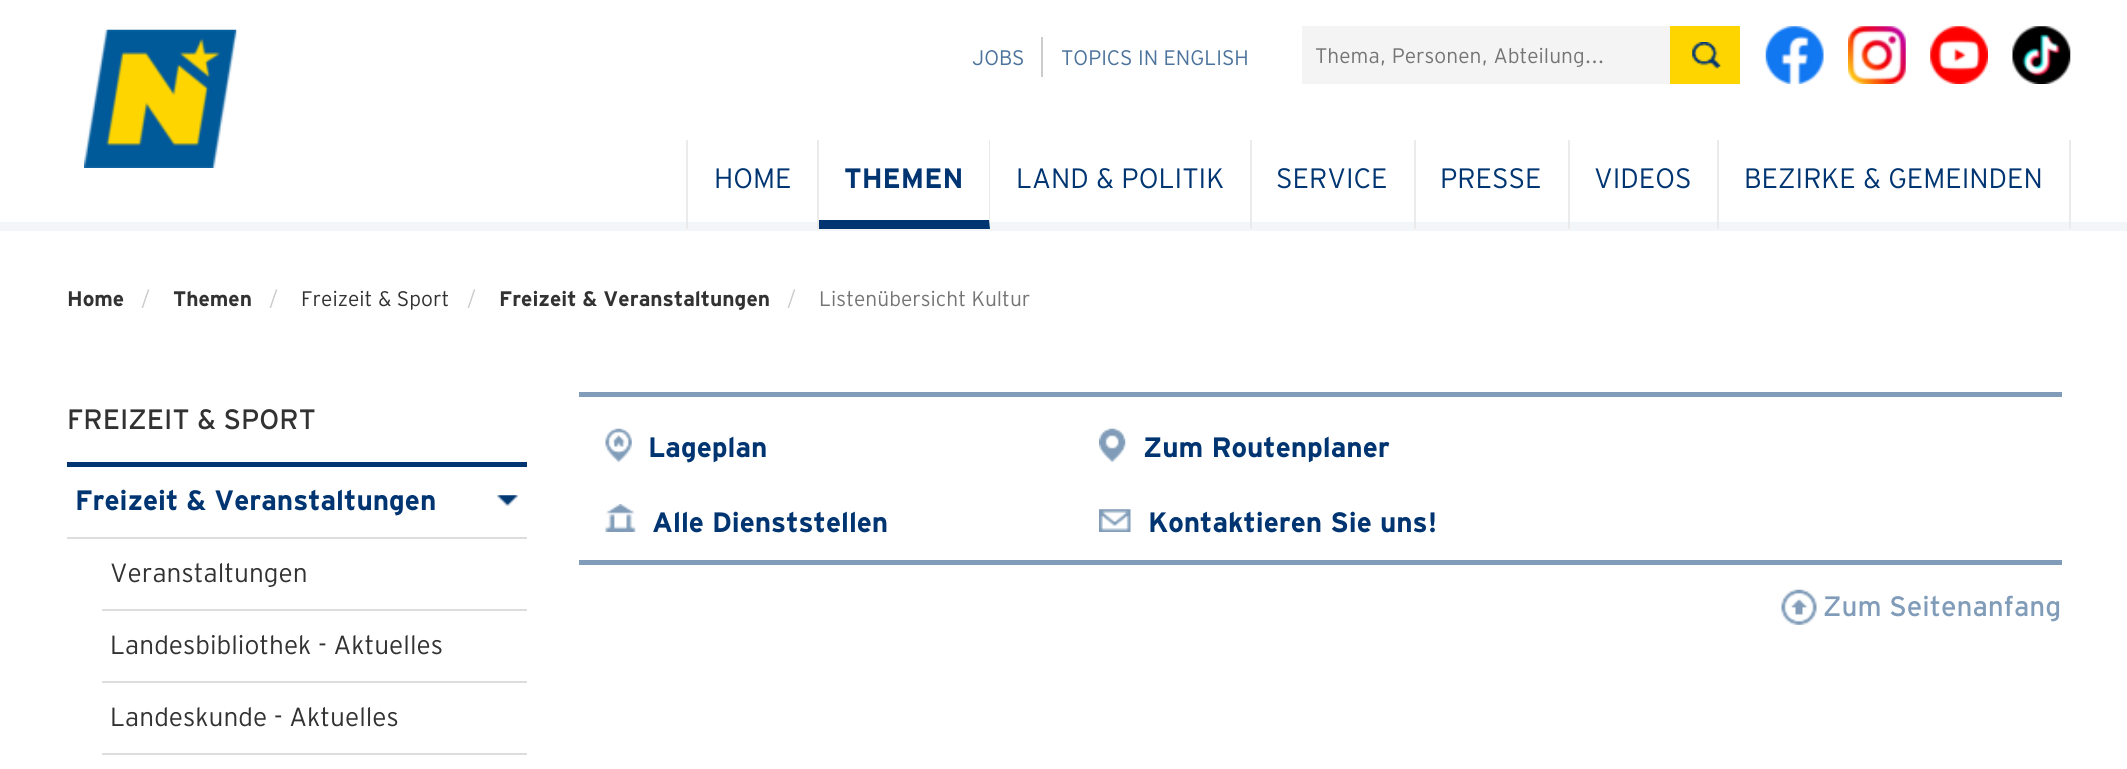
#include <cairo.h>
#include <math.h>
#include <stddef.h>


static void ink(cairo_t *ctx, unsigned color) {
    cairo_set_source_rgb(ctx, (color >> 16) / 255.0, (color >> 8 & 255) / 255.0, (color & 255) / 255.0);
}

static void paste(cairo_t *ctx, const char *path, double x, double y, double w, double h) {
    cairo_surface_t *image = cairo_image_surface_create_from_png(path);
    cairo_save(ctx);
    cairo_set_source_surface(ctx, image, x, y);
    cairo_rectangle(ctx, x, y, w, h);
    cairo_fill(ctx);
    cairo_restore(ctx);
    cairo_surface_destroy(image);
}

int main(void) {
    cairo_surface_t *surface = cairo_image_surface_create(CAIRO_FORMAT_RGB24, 2127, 769);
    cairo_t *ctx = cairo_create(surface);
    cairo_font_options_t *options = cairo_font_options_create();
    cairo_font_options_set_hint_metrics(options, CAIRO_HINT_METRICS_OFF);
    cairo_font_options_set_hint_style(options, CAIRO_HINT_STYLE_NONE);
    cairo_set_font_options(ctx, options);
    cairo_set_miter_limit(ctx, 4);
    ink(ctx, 0xFFFFFF);
    cairo_paint(ctx);
    ink(ctx, 0xF2F6F9);
    cairo_rectangle(ctx, 0, 222, 2127, 9);
    cairo_fill(ctx);
    paste(ctx, "media/1.png", 84, 29, 153, 139);
    cairo_select_font_face(ctx, "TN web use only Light", CAIRO_FONT_SLANT_NORMAL, CAIRO_FONT_WEIGHT_NORMAL);
    cairo_set_font_size(ctx, 21);
    ink(ctx, 0x4C739B);
    cairo_move_to(ctx, 972, 65);
    cairo_show_text(ctx, "JOBS");
    ink(ctx, 0xCCCCCC);
    cairo_rectangle(ctx, 1041, 37, 2, 40);
    cairo_fill(ctx);
    ink(ctx, 0x4C739B);
    cairo_move_to(ctx, 1061, 65);
    cairo_show_text(ctx, "TOPICS IN ENGLISH");
    ink(ctx, 0xF4F4F4);
    cairo_rectangle(ctx, 1302, 26, 368, 58);
    cairo_fill(ctx);
    ink(ctx, 0x757575);
    cairo_move_to(ctx, 1315, 63);
    cairo_show_text(ctx, "Thema, Personen, Abteilung...");
    ink(ctx, 0xFFD500);
    cairo_rectangle(ctx, 1670, 26, 70, 58);
    cairo_fill(ctx);
    paste(ctx, "media/2.png", 1692, 42, 29, 27);
    paste(ctx, "media/3.png", 1765, 26, 59, 58);
    paste(ctx, "media/4.png", 1848, 26, 58, 58);
    paste(ctx, "media/5.png", 1930, 26, 58, 58);
    paste(ctx, "media/6.png", 2012, 26, 59, 58);
    ink(ctx, 0xEBEBEB);
    cairo_rectangle(ctx, 817, 140, 2, 89);
    cairo_fill(ctx);
    cairo_rectangle(ctx, 686, 140, 2, 89);
    cairo_fill(ctx);
    cairo_set_font_size(ctx, 28);
    ink(ctx, 0x003572);
    cairo_move_to(ctx, 714, 188);
    cairo_show_text(ctx, "HOME");
    ink(ctx, 0xEBEBEB);
    cairo_new_path(ctx);
    cairo_move_to(ctx, 990, 140);
    cairo_line_to(ctx, 990, 229);
    cairo_line_to(ctx, 989, 220);
    cairo_line_to(ctx, 989, 140);
    cairo_close_path(ctx);
    cairo_fill(ctx);
    ink(ctx, 0x003572);
    cairo_new_path(ctx);
    cairo_move_to(ctx, 990, 229);
    cairo_line_to(ctx, 819, 229);
    cairo_line_to(ctx, 819, 220);
    cairo_line_to(ctx, 989, 220);
    cairo_close_path(ctx);
    cairo_fill(ctx);
    cairo_select_font_face(ctx, "TN web use only", CAIRO_FONT_SLANT_NORMAL, CAIRO_FONT_WEIGHT_BOLD);
    cairo_move_to(ctx, 844, 188);
    cairo_show_text(ctx, "THEMEN");
    ink(ctx, 0xEBEBEB);
    cairo_rectangle(ctx, 1250, 140, 2, 89);
    cairo_fill(ctx);
    cairo_select_font_face(ctx, "TN web use only Light", CAIRO_FONT_SLANT_NORMAL, CAIRO_FONT_WEIGHT_NORMAL);
    ink(ctx, 0x003572);
    cairo_move_to(ctx, 1016, 188);
    cairo_show_text(ctx, "LAND & POLITIK");
    ink(ctx, 0xEBEBEB);
    cairo_rectangle(ctx, 1414, 140, 2, 89);
    cairo_fill(ctx);
    ink(ctx, 0x003572);
    cairo_move_to(ctx, 1276, 188);
    cairo_show_text(ctx, "SERVICE");
    ink(ctx, 0xEBEBEB);
    cairo_rectangle(ctx, 1568, 140, 2, 89);
    cairo_fill(ctx);
    ink(ctx, 0x003572);
    cairo_move_to(ctx, 1440, 188);
    cairo_show_text(ctx, "PRESSE");
    ink(ctx, 0xEBEBEB);
    cairo_rectangle(ctx, 1717, 140, 2, 89);
    cairo_fill(ctx);
    ink(ctx, 0x003572);
    cairo_move_to(ctx, 1594, 188);
    cairo_show_text(ctx, "VIDEOS");
    ink(ctx, 0xEBEBEB);
    cairo_rectangle(ctx, 2069, 140, 2, 89);
    cairo_fill(ctx);
    ink(ctx, 0x003572);
    cairo_move_to(ctx, 1744, 188);
    cairo_show_text(ctx, "BEZIRKE & GEMEINDEN");
    cairo_select_font_face(ctx, "TN web use only", CAIRO_FONT_SLANT_NORMAL, CAIRO_FONT_WEIGHT_BOLD);
    cairo_set_font_size(ctx, 21);
    ink(ctx, 0x323232);
    cairo_move_to(ctx, 67, 306);
    cairo_show_text(ctx, "Home");
    cairo_select_font_face(ctx, "TN web use only Light", CAIRO_FONT_SLANT_NORMAL, CAIRO_FONT_WEIGHT_NORMAL);
    ink(ctx, 0xCCCCCC);
    cairo_move_to(ctx, 141, 306);
    cairo_show_text(ctx, "/");
    cairo_select_font_face(ctx, "TN web use only", CAIRO_FONT_SLANT_NORMAL, CAIRO_FONT_WEIGHT_BOLD);
    ink(ctx, 0x323232);
    cairo_move_to(ctx, 173, 306);
    cairo_show_text(ctx, "Themen");
    cairo_select_font_face(ctx, "TN web use only Light", CAIRO_FONT_SLANT_NORMAL, CAIRO_FONT_WEIGHT_NORMAL);
    ink(ctx, 0xCCCCCC);
    cairo_move_to(ctx, 269, 306);
    cairo_show_text(ctx, "/");
    ink(ctx, 0x323232);
    cairo_move_to(ctx, 301, 306);
    cairo_show_text(ctx, "Freizeit & Sport");
    ink(ctx, 0xCCCCCC);
    cairo_move_to(ctx, 467, 306);
    cairo_show_text(ctx, "/");
    cairo_select_font_face(ctx, "TN web use only", CAIRO_FONT_SLANT_NORMAL, CAIRO_FONT_WEIGHT_BOLD);
    ink(ctx, 0x323232);
    cairo_move_to(ctx, 499, 306);
    cairo_show_text(ctx, "Freizeit & Veranstaltungen");
    cairo_select_font_face(ctx, "TN web use only Light", CAIRO_FONT_SLANT_NORMAL, CAIRO_FONT_WEIGHT_NORMAL);
    ink(ctx, 0xCCCCCC);
    cairo_move_to(ctx, 787, 306);
    cairo_show_text(ctx, "/");
    ink(ctx, 0x757575);
    cairo_move_to(ctx, 819, 306);
    cairo_show_text(ctx, "Listenübersicht Kultur");
    cairo_select_font_face(ctx, "TN web use only", CAIRO_FONT_SLANT_NORMAL, CAIRO_FONT_WEIGHT_NORMAL);
    cairo_set_font_size(ctx, 28);
    ink(ctx, 0x323232);
    cairo_move_to(ctx, 67, 429);
    cairo_show_text(ctx, "FREIZEIT & SPORT");
    ink(ctx, 0x003572);
    cairo_rectangle(ctx, 67, 462, 460, 5);
    cairo_fill(ctx);
    ink(ctx, 0xDDDDDD);
    cairo_rectangle(ctx, 67, 537, 460, 2);
    cairo_fill(ctx);
    cairo_select_font_face(ctx, "TN web use only", CAIRO_FONT_SLANT_NORMAL, CAIRO_FONT_WEIGHT_BOLD);
    ink(ctx, 0x003572);
    cairo_move_to(ctx, 75, 510);
    cairo_show_text(ctx, "Freizeit & Veranstaltungen");
    paste(ctx, "media/7.png", 497, 495, 21, 11);
    ink(ctx, 0xDDDDDD);
    cairo_rectangle(ctx, 102, 609, 425, 2);
    cairo_fill(ctx);
    cairo_select_font_face(ctx, "TN web use only Light", CAIRO_FONT_SLANT_NORMAL, CAIRO_FONT_WEIGHT_NORMAL);
    cairo_set_font_size(ctx, 26.25);
    ink(ctx, 0x323232);
    cairo_move_to(ctx, 110, 582);
    cairo_show_text(ctx, "Veranstaltungen");
    ink(ctx, 0xDDDDDD);
    cairo_rectangle(ctx, 102, 681, 425, 2);
    cairo_fill(ctx);
    ink(ctx, 0x323232);
    cairo_move_to(ctx, 110, 654);
    cairo_show_text(ctx, "Landesbibliothek - Aktuelles");
    ink(ctx, 0xDDDDDD);
    cairo_rectangle(ctx, 102, 753, 425, 2);
    cairo_fill(ctx);
    ink(ctx, 0x323232);
    cairo_move_to(ctx, 110, 726);
    cairo_show_text(ctx, "Landeskunde - Aktuelles");
    ink(ctx, 0x809CB8);
    cairo_rectangle(ctx, 579, 392, 1483, 5);
    cairo_fill(ctx);
    paste(ctx, "media/8.png", 605, 428, 27, 34);
    cairo_select_font_face(ctx, "TN web use only", CAIRO_FONT_SLANT_NORMAL, CAIRO_FONT_WEIGHT_BOLD);
    cairo_set_font_size(ctx, 28);
    ink(ctx, 0x003572);
    cairo_move_to(ctx, 648, 457);
    cairo_show_text(ctx, "Lageplan");
    paste(ctx, "media/9.png", 1099, 428, 27, 34);
    cairo_move_to(ctx, 1143, 457);
    cairo_show_text(ctx, "Zum Routenplaner");
    paste(ctx, "media/10.png", 605, 504, 31, 28);
    cairo_move_to(ctx, 652, 532);
    cairo_show_text(ctx, "Alle Dienststellen");
    paste(ctx, "media/11.png", 1099, 509, 32, 23);
    cairo_move_to(ctx, 1148, 532);
    cairo_show_text(ctx, "Kontaktieren Sie uns!");
    ink(ctx, 0x809CB8);
    cairo_rectangle(ctx, 579, 560, 1483, 5);
    cairo_fill(ctx);
    paste(ctx, "media/12.png", 1781, 589, 36, 36);
    cairo_select_font_face(ctx, "TN web use only", CAIRO_FONT_SLANT_NORMAL, CAIRO_FONT_WEIGHT_NORMAL);
    cairo_move_to(ctx, 1823, 616);
    cairo_show_text(ctx, "Zum Seitenanfang");
    cairo_surface_write_to_png(surface, "image.png");
    cairo_font_options_destroy(options);
    cairo_destroy(ctx);
    cairo_surface_destroy(surface);
    return 0;
}
